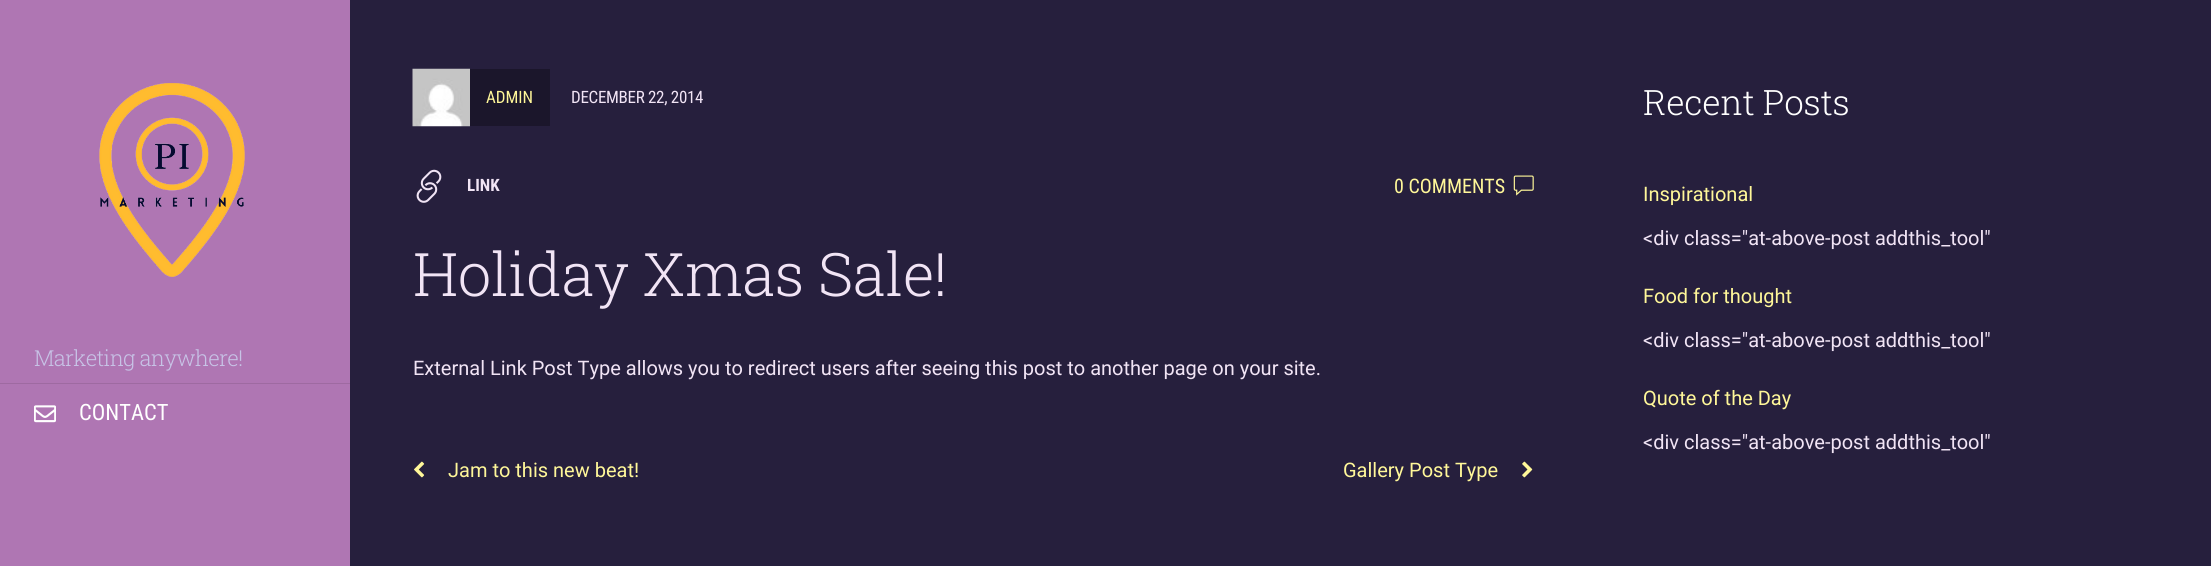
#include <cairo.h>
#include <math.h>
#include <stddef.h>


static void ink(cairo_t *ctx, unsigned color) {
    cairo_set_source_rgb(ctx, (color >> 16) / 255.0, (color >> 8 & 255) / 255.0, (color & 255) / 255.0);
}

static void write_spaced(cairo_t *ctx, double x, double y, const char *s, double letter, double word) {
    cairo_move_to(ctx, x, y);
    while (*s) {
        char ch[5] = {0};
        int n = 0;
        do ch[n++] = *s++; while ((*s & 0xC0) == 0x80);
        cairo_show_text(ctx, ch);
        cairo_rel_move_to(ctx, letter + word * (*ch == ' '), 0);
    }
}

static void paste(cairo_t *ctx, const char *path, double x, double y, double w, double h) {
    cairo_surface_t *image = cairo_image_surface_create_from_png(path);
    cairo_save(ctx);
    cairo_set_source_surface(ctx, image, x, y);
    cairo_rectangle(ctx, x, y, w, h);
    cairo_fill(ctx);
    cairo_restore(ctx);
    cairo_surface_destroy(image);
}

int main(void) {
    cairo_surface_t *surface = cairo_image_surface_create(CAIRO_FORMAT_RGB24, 2211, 566);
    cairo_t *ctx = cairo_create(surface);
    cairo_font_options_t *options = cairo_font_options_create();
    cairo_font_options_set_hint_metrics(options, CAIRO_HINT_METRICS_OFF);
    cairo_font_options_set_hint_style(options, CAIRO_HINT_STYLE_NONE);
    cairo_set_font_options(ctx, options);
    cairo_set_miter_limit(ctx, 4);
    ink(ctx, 0x261F3D);
    cairo_paint(ctx);
    ink(ctx, 0xAF76B3);
    cairo_rectangle(ctx, 0, 0, 350, 566);
    cairo_fill(ctx);
    paste(ctx, "media/1.png", 99, 83, 146, 194);
    cairo_select_font_face(ctx, "Roboto Slab Light", CAIRO_FONT_SLANT_NORMAL, CAIRO_FONT_WEIGHT_NORMAL);
    cairo_set_font_size(ctx, 22);
    ink(ctx, 0xC7C3E6);
    write_spaced(ctx, 34, 366, "Marketing anywhere!", -0.7, 0);
    ink(ctx, 0x9E6AA1);
    cairo_rectangle(ctx, 0, 383, 350, 1);
    cairo_fill(ctx);
    paste(ctx, "media/2.png", 34, 405, 22, 18);
    cairo_select_font_face(ctx, "Roboto Condensed", CAIRO_FONT_SLANT_NORMAL, CAIRO_FONT_WEIGHT_NORMAL);
    cairo_set_font_size(ctx, 22.5);
    ink(ctx, 0xFFFFFF);
    cairo_move_to(ctx, 79, 420);
    cairo_show_text(ctx, "CONTACT");
    ink(ctx, 0x1B162B);
    cairo_rectangle(ctx, 470, 69, 80, 57);
    cairo_fill(ctx);
    paste(ctx, "media/3.png", 412, 68, 58, 59);
    cairo_set_font_size(ctx, 17);
    ink(ctx, 0xFFF799);
    cairo_move_to(ctx, 486, 103);
    cairo_show_text(ctx, "ADMIN");
    ink(ctx, 0xF1E4F5);
    write_spaced(ctx, 571, 103, "DECEMBER 22, 2014", -0.3, 0);
    paste(ctx, "media/4.png", 416, 169, 26, 34);
    cairo_select_font_face(ctx, "Roboto Condensed", CAIRO_FONT_SLANT_NORMAL, CAIRO_FONT_WEIGHT_BOLD);
    cairo_move_to(ctx, 467, 191);
    cairo_show_text(ctx, "LINK");
    cairo_select_font_face(ctx, "Roboto Condensed", CAIRO_FONT_SLANT_NORMAL, CAIRO_FONT_WEIGHT_NORMAL);
    cairo_set_font_size(ctx, 20);
    ink(ctx, 0xFFF799);
    cairo_move_to(ctx, 1394, 193);
    cairo_show_text(ctx, "0 COMMENTS");
    paste(ctx, "media/5.png", 1513, 175, 21, 21);
    cairo_select_font_face(ctx, "Roboto Slab Light", CAIRO_FONT_SLANT_NORMAL, CAIRO_FONT_WEIGHT_NORMAL);
    cairo_set_font_size(ctx, 60);
    ink(ctx, 0xF1E4F5);
    write_spaced(ctx, 413, 296, "Holiday Xmas Sale!", -0.4, 0);
    cairo_select_font_face(ctx, "Roboto", CAIRO_FONT_SLANT_NORMAL, CAIRO_FONT_WEIGHT_NORMAL);
    cairo_set_font_size(ctx, 20);
    cairo_move_to(ctx, 413, 375);
    cairo_show_text(ctx, "External Link Post Type allows you to redirect users after seeing this post to another page on your site.");
    paste(ctx, "media/6.png", 414, 461, 11, 17);
    ink(ctx, 0xFFF799);
    cairo_move_to(ctx, 448, 477);
    cairo_show_text(ctx, "Jam to this new beat!");
    cairo_move_to(ctx, 1343, 477);
    cairo_show_text(ctx, "Gallery Post Type");
    paste(ctx, "media/7.png", 1522, 461, 11, 17);
    cairo_select_font_face(ctx, "Roboto Slab Light", CAIRO_FONT_SLANT_NORMAL, CAIRO_FONT_WEIGHT_NORMAL);
    cairo_set_font_size(ctx, 35);
    ink(ctx, 0xFFFFFF);
    write_spaced(ctx, 1643, 115, "Recent Posts", -0.3, 0);
    cairo_select_font_face(ctx, "Roboto", CAIRO_FONT_SLANT_NORMAL, CAIRO_FONT_WEIGHT_NORMAL);
    cairo_set_font_size(ctx, 20);
    ink(ctx, 0xFFF799);
    cairo_move_to(ctx, 1643, 201);
    cairo_show_text(ctx, "Inspirational");
    ink(ctx, 0xF1E4F5);
    cairo_move_to(ctx, 1643, 245);
    cairo_show_text(ctx, "<div class=\"at-above-post addthis_tool\"");
    ink(ctx, 0xFFF799);
    cairo_move_to(ctx, 1643, 303);
    cairo_show_text(ctx, "Food for thought");
    ink(ctx, 0xF1E4F5);
    cairo_move_to(ctx, 1643, 347);
    cairo_show_text(ctx, "<div class=\"at-above-post addthis_tool\"");
    ink(ctx, 0xFFF799);
    cairo_move_to(ctx, 1643, 405);
    cairo_show_text(ctx, "Quote of the Day");
    ink(ctx, 0xF1E4F5);
    cairo_move_to(ctx, 1643, 449);
    cairo_show_text(ctx, "<div class=\"at-above-post addthis_tool\"");
    cairo_surface_write_to_png(surface, "image.png");
    cairo_font_options_destroy(options);
    cairo_destroy(ctx);
    cairo_surface_destroy(surface);
    return 0;
}
